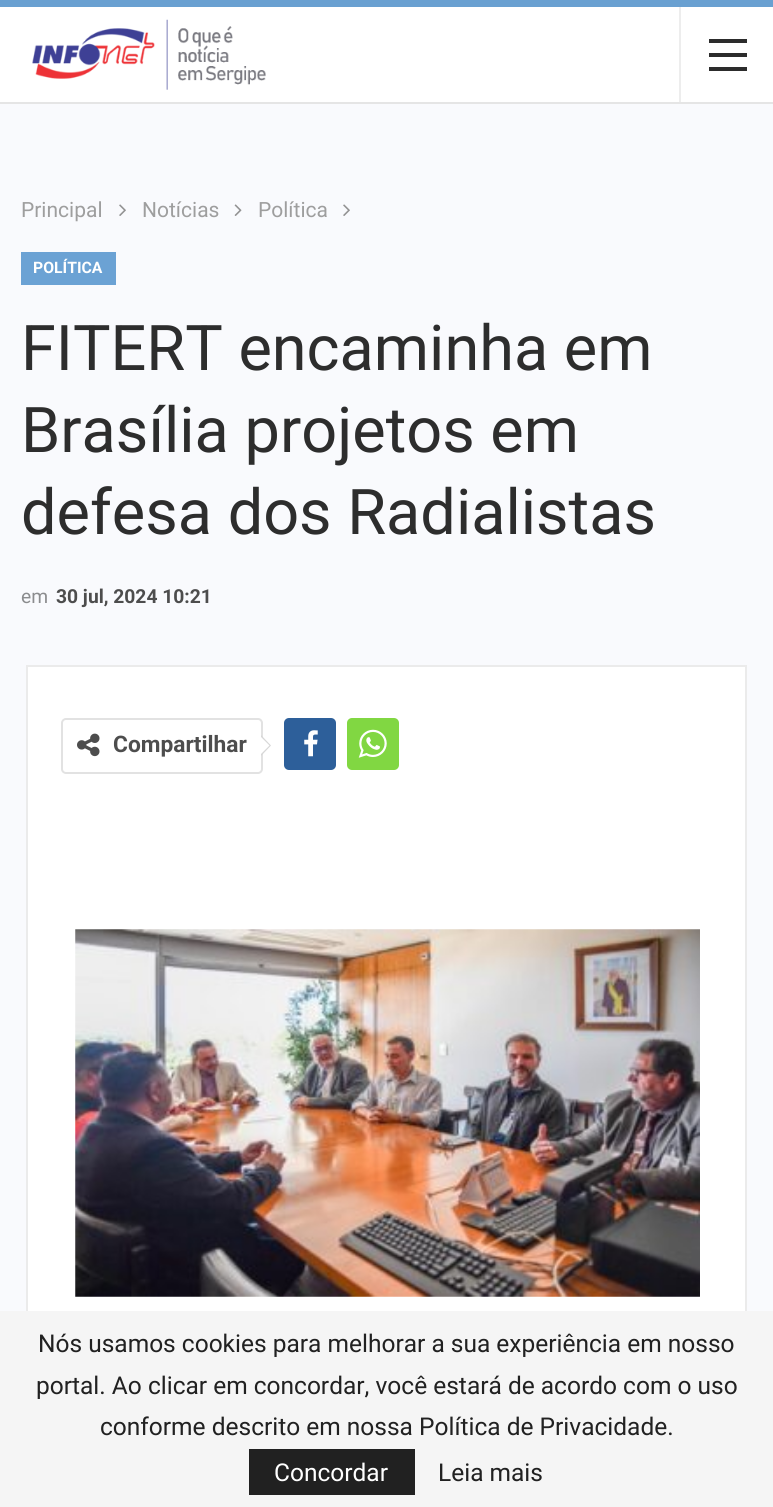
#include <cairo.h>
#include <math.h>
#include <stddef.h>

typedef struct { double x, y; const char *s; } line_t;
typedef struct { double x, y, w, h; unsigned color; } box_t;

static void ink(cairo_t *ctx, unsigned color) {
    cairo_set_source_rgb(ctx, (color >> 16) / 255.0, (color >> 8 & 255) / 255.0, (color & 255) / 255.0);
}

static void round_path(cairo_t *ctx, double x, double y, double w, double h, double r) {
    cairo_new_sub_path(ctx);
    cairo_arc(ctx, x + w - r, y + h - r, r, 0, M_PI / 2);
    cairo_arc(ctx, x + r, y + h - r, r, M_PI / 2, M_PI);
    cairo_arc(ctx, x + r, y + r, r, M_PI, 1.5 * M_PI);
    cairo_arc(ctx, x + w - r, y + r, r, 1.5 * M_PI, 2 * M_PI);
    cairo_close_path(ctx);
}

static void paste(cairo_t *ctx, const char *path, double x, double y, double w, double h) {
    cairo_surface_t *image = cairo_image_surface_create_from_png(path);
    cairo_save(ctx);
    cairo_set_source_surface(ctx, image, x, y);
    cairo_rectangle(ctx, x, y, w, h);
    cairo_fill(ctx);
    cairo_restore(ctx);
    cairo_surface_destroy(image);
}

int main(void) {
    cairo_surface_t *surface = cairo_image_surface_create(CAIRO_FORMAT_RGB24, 773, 1507);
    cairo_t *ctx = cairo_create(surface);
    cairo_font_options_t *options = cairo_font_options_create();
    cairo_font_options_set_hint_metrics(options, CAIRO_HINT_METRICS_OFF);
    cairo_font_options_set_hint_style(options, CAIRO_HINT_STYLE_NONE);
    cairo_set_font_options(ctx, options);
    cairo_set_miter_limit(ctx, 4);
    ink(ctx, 0x69A0D1);
    cairo_paint(ctx);
    ink(ctx, 0xFFFFFF);
    cairo_rectangle(ctx, 0, 7, 773, 95);
    cairo_fill(ctx);
    ink(ctx, 0xE5E5E5);
    cairo_rectangle(ctx, 0, 102, 773, 2);
    cairo_fill(ctx);
    paste(ctx, "media/1.png", 32, 19, 234, 71);
    {
        static const box_t items[] = {
            {679, 7, 2, 95, 0xEDEDED},
            {709, 53, 38, 4, 0x2C2C2C},
            {709, 39, 38, 4, 0x2C2C2C},
            {709, 67, 38, 4, 0x2C2C2C},
            {0, 104, 773, 1207, 0xF9FAFD},
        };
        for (size_t i = 0; i < sizeof items / sizeof *items; i++) {
            ink(ctx, items[i].color);
            cairo_rectangle(ctx, items[i].x, items[i].y, items[i].w, items[i].h);
            cairo_fill(ctx);
        }
    }
    cairo_select_font_face(ctx, "Roboto", CAIRO_FONT_SLANT_NORMAL, CAIRO_FONT_WEIGHT_NORMAL);
    cairo_set_font_size(ctx, 21);
    ink(ctx, 0x9E9E9E);
    cairo_move_to(ctx, 21, 217);
    cairo_show_text(ctx, "Principal");
    paste(ctx, "media/2.png", 119, 204, 7, 12);
    cairo_move_to(ctx, 142, 217);
    cairo_show_text(ctx, "Notícias");
    paste(ctx, "media/3.png", 234, 204, 8, 12);
    cairo_move_to(ctx, 258, 217);
    cairo_show_text(ctx, "Política");
    paste(ctx, "media/2.png", 343, 204, 7, 12);
    ink(ctx, 0x6BA2D4);
    cairo_rectangle(ctx, 21, 252, 95, 33);
    cairo_fill(ctx);
    cairo_select_font_face(ctx, "Roboto", CAIRO_FONT_SLANT_NORMAL, CAIRO_FONT_WEIGHT_BOLD);
    cairo_set_font_size(ctx, 15.75);
    ink(ctx, 0xFFFFFF);
    cairo_move_to(ctx, 33, 273);
    cairo_show_text(ctx, "POLÍTICA");
    cairo_select_font_face(ctx, "Roboto", CAIRO_FONT_SLANT_NORMAL, CAIRO_FONT_WEIGHT_NORMAL);
    cairo_set_font_size(ctx, 63);
    ink(ctx, 0x2D2D2D);
    {
        static const line_t items[] = {
            {21, 370, "FITERT encaminha em"},
            {21, 452, "Brasília projetos em"},
            {21, 534, "defesa dos Radialistas"},
        };
        for (size_t i = 0; i < sizeof items / sizeof *items; i++) {
            cairo_move_to(ctx, items[i].x, items[i].y);
            cairo_show_text(ctx, items[i].s);
        }
    }
    cairo_set_font_size(ctx, 19.25);
    ink(ctx, 0x8B8C8E);
    cairo_move_to(ctx, 21, 603);
    cairo_show_text(ctx, "em");
    cairo_select_font_face(ctx, "Roboto", CAIRO_FONT_SLANT_NORMAL, CAIRO_FONT_WEIGHT_BOLD);
    ink(ctx, 0x4D4D4D);
    cairo_move_to(ctx, 56, 603);
    cairo_show_text(ctx, "30 jul, 2024 10:21");
    ink(ctx, 0xFFFFFF);
    cairo_rectangle(ctx, 28, 667, 717, 644);
    cairo_fill(ctx);
    cairo_rectangle(ctx, 27, 666, 719, 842);
    ink(ctx, 0xEBEBEB);
    cairo_stroke(ctx);
    round_path(ctx, 62, 719, 200, 54, 4);
    ink(ctx, 0xE2E2E2);
    cairo_stroke(ctx);
    paste(ctx, "media/4.png", 77, 733, 23, 24);
    cairo_set_font_size(ctx, 22.75);
    ink(ctx, 0x4D4D4D);
    cairo_move_to(ctx, 113, 752);
    cairo_show_text(ctx, "Compartilhar");
    ink(ctx, 0xD7D7D7);
    cairo_new_path(ctx);
    cairo_move_to(ctx, 261, 756);
    cairo_line_to(ctx, 261, 735);
    cairo_line_to(ctx, 271, 745.5);
    cairo_close_path(ctx);
    cairo_fill(ctx);
    ink(ctx, 0xFFFFFF);
    cairo_new_path(ctx);
    cairo_move_to(ctx, 261, 754);
    cairo_line_to(ctx, 261, 737);
    cairo_line_to(ctx, 269.5, 745.5);
    cairo_close_path(ctx);
    cairo_fill(ctx);
    ink(ctx, 0x2D5F9A);
    round_path(ctx, 284, 718, 52, 52, 5);
    cairo_fill(ctx);
    paste(ctx, "media/5.png", 304, 730, 14, 27);
    ink(ctx, 0x81D742);
    round_path(ctx, 347, 718, 52, 52, 5);
    cairo_fill(ctx);
    paste(ctx, "media/6.png", 358, 729, 29, 29);
    paste(ctx, "media/7.png", 75, 929, 625, 368);
    ink(ctx, 0xF5F5F5);
    cairo_rectangle(ctx, 0, 1311, 773, 196);
    cairo_fill(ctx);
    cairo_select_font_face(ctx, "Roboto", CAIRO_FONT_SLANT_NORMAL, CAIRO_FONT_WEIGHT_NORMAL);
    cairo_set_font_size(ctx, 24.5);
    ink(ctx, 0x212121);
    {
        static const line_t items[] = {
            {38, 1352, "Nós usamos cookies para melhorar a sua experiência em nosso"},
            {36, 1394, "portal. Ao clicar em concordar, você estará de acordo com o uso"},
            {100, 1435, "conforme descrito em nossa Política de Privacidade."},
        };
        for (size_t i = 0; i < sizeof items / sizeof *items; i++) {
            cairo_move_to(ctx, items[i].x, items[i].y);
            cairo_show_text(ctx, items[i].s);
        }
    }
    cairo_rectangle(ctx, 249, 1449, 166, 46);
    cairo_fill(ctx);
    ink(ctx, 0xFFFFFF);
    cairo_move_to(ctx, 274, 1481);
    cairo_show_text(ctx, "Concordar");
    ink(ctx, 0x212121);
    cairo_move_to(ctx, 438, 1481);
    cairo_show_text(ctx, "Leia mais");
    cairo_surface_write_to_png(surface, "image.png");
    cairo_font_options_destroy(options);
    cairo_destroy(ctx);
    cairo_surface_destroy(surface);
    return 0;
}
